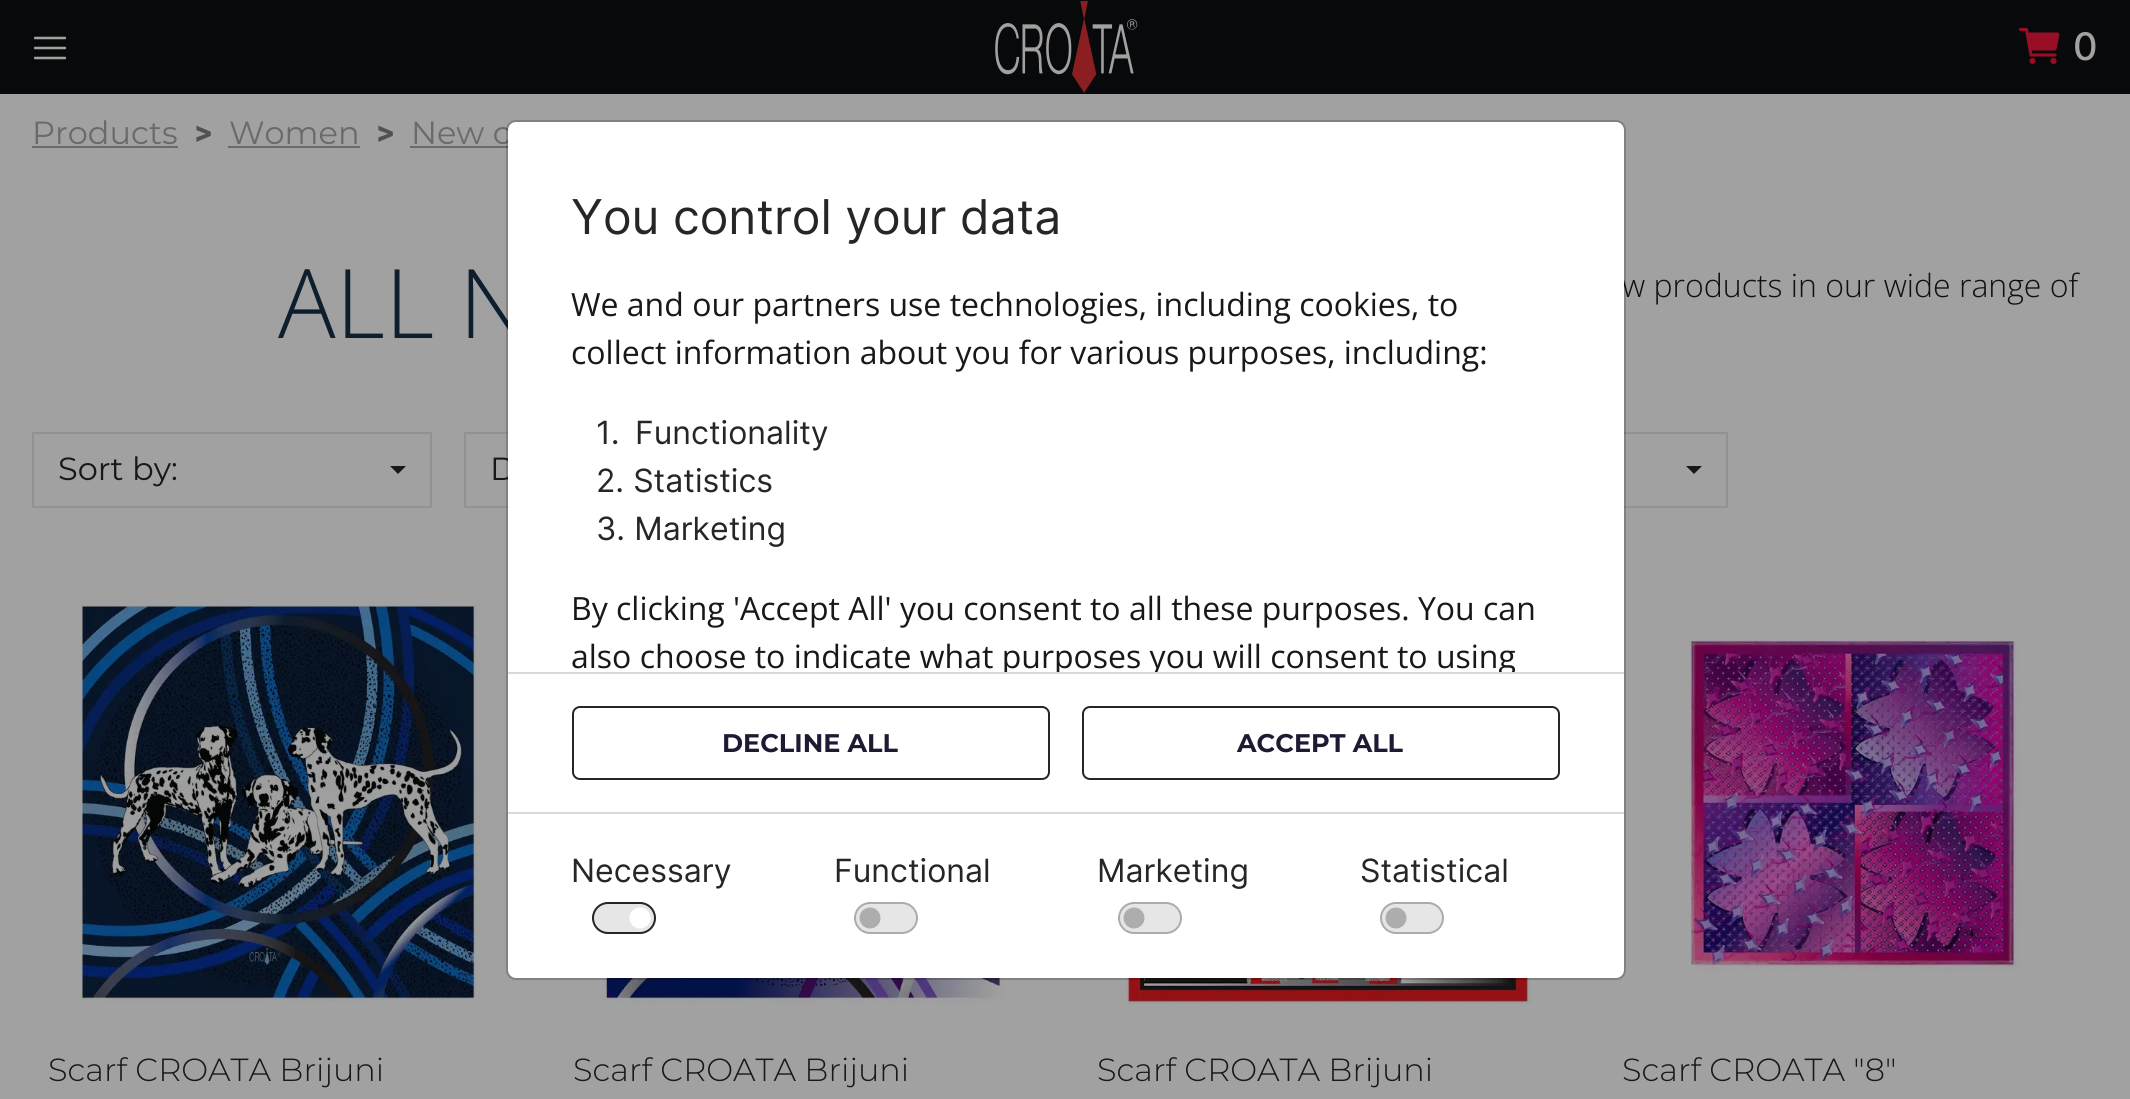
#include <cairo.h>
#include <math.h>
#include <stddef.h>

typedef struct { double x, y; const char *s; } line_t;

static void ink(cairo_t *ctx, unsigned color) {
    cairo_set_source_rgb(ctx, (color >> 16) / 255.0, (color >> 8 & 255) / 255.0, (color & 255) / 255.0);
}

static void round_path(cairo_t *ctx, double x, double y, double w, double h, double r) {
    cairo_new_sub_path(ctx);
    cairo_arc(ctx, x + w - r, y + h - r, r, 0, M_PI / 2);
    cairo_arc(ctx, x + r, y + h - r, r, M_PI / 2, M_PI);
    cairo_arc(ctx, x + r, y + r, r, M_PI, 1.5 * M_PI);
    cairo_arc(ctx, x + w - r, y + r, r, 1.5 * M_PI, 2 * M_PI);
    cairo_close_path(ctx);
}

static void paste(cairo_t *ctx, const char *path, double x, double y, double w, double h) {
    cairo_surface_t *image = cairo_image_surface_create_from_png(path);
    cairo_save(ctx);
    cairo_set_source_surface(ctx, image, x, y);
    cairo_rectangle(ctx, x, y, w, h);
    cairo_fill(ctx);
    cairo_restore(ctx);
    cairo_surface_destroy(image);
}

int main(void) {
    cairo_surface_t *surface = cairo_image_surface_create(CAIRO_FORMAT_RGB24, 2130, 1099);
    cairo_t *ctx = cairo_create(surface);
    cairo_font_options_t *options = cairo_font_options_create();
    cairo_font_options_set_hint_metrics(options, CAIRO_HINT_METRICS_OFF);
    cairo_font_options_set_hint_style(options, CAIRO_HINT_STYLE_NONE);
    cairo_set_font_options(ctx, options);
    cairo_set_miter_limit(ctx, 4);
    ink(ctx, 0xA1A1A1);
    cairo_paint(ctx);
    ink(ctx, 0x08090A);
    cairo_rectangle(ctx, 0, 0, 2130, 94);
    cairo_fill(ctx);
    cairo_save(ctx);
    cairo_rectangle(ctx, 34, 32, 32, 32);
    cairo_clip(ctx);
    cairo_new_path(ctx);
    cairo_move_to(ctx, 35, 48);
    cairo_line_to(ctx, 65, 48);
    cairo_move_to(ctx, 35, 38);
    cairo_line_to(ctx, 65, 38);
    cairo_move_to(ctx, 35, 58);
    cairo_line_to(ctx, 65, 58);
    ink(ctx, 0xA1A1A1);
    cairo_set_line_width(ctx, 2.5);
    cairo_set_line_cap(ctx, CAIRO_LINE_CAP_ROUND);
    cairo_set_line_join(ctx, CAIRO_LINE_JOIN_ROUND);
    cairo_stroke(ctx);
    cairo_restore(ctx);
    paste(ctx, "media/1.png", 995, 1, 143, 92);
    paste(ctx, "media/2.png", 2019, 27, 41, 37);
    cairo_select_font_face(ctx, "Inter Medium", CAIRO_FONT_SLANT_NORMAL, CAIRO_FONT_WEIGHT_NORMAL);
    cairo_set_font_size(ctx, 38);
    ink(ctx, 0xA1A1A1);
    cairo_move_to(ctx, 2073, 60);
    cairo_show_text(ctx, "0");
    cairo_select_font_face(ctx, "Montserrat", CAIRO_FONT_SLANT_NORMAL, CAIRO_FONT_WEIGHT_NORMAL);
    cairo_set_font_size(ctx, 32);
    ink(ctx, 0x6A6A6A);
    cairo_move_to(ctx, 32, 144);
    cairo_show_text(ctx, "Products");
    cairo_rectangle(ctx, 32, 146, 146, 2);
    cairo_fill(ctx);
    cairo_select_font_face(ctx, "Inter ExtraBold", CAIRO_FONT_SLANT_NORMAL, CAIRO_FONT_WEIGHT_NORMAL);
    cairo_set_font_size(ctx, 28);
    ink(ctx, 0x515151);
    cairo_move_to(ctx, 194, 142);
    cairo_show_text(ctx, ">");
    cairo_select_font_face(ctx, "Montserrat", CAIRO_FONT_SLANT_NORMAL, CAIRO_FONT_WEIGHT_NORMAL);
    cairo_set_font_size(ctx, 32);
    ink(ctx, 0x6A6A6A);
    cairo_move_to(ctx, 229, 144);
    cairo_show_text(ctx, "Women");
    cairo_rectangle(ctx, 228, 146, 132, 2);
    cairo_fill(ctx);
    cairo_select_font_face(ctx, "Inter ExtraBold", CAIRO_FONT_SLANT_NORMAL, CAIRO_FONT_WEIGHT_NORMAL);
    cairo_set_font_size(ctx, 28);
    ink(ctx, 0x515151);
    cairo_move_to(ctx, 376, 142);
    cairo_show_text(ctx, ">");
    cairo_select_font_face(ctx, "Montserrat", CAIRO_FONT_SLANT_NORMAL, CAIRO_FONT_WEIGHT_NORMAL);
    cairo_set_font_size(ctx, 32);
    ink(ctx, 0x6A6A6A);
    cairo_move_to(ctx, 411, 144);
    cairo_show_text(ctx, "New c");
    cairo_rectangle(ctx, 410, 146, 98, 2);
    cairo_fill(ctx);
    cairo_select_font_face(ctx, "Open Sans Light", CAIRO_FONT_SLANT_NORMAL, CAIRO_FONT_WEIGHT_NORMAL);
    cairo_set_font_size(ctx, 96);
    ink(ctx, 0x0D1E2F);
    cairo_move_to(ctx, 278, 338);
    cairo_show_text(ctx, "ALL N");
    cairo_set_font_size(ctx, 32);
    ink(ctx, 0x101010);
    cairo_move_to(ctx, 1622, 297);
    cairo_show_text(ctx, "w products in our wide range of");
    cairo_rectangle(ctx, 33, 433, 398, 74);
    ink(ctx, 0x939191);
    cairo_stroke(ctx);
    cairo_select_font_face(ctx, "Montserrat", CAIRO_FONT_SLANT_NORMAL, CAIRO_FONT_WEIGHT_NORMAL);
    ink(ctx, 0x181818);
    cairo_move_to(ctx, 58, 480);
    cairo_show_text(ctx, "Sort by:");
    cairo_new_path(ctx);
    cairo_move_to(ctx, 390, 466);
    cairo_line_to(ctx, 406, 466);
    cairo_line_to(ctx, 398, 474);
    cairo_close_path(ctx);
    cairo_fill(ctx);
    cairo_rectangle(ctx, 465, 433, 398, 74);
    ink(ctx, 0x939191);
    cairo_stroke(ctx);
    ink(ctx, 0x181818);
    cairo_move_to(ctx, 490, 480);
    cairo_show_text(ctx, "D");
    cairo_rectangle(ctx, 1329, 433, 398, 74);
    ink(ctx, 0x939191);
    cairo_stroke(ctx);
    ink(ctx, 0x181818);
    cairo_new_path(ctx);
    cairo_move_to(ctx, 1686, 466);
    cairo_line_to(ctx, 1702, 466);
    cairo_line_to(ctx, 1694, 474);
    cairo_close_path(ctx);
    cairo_fill(ctx);
    paste(ctx, "media/3.png", 79, 604, 402, 398);
    cairo_select_font_face(ctx, "Montserrat Light", CAIRO_FONT_SLANT_NORMAL, CAIRO_FONT_WEIGHT_NORMAL);
    cairo_move_to(ctx, 48, 1081);
    cairo_show_text(ctx, "Scarf CROATA Brijuni");
    paste(ctx, "media/4.png", 603, 978, 401, 26);
    cairo_move_to(ctx, 573, 1081);
    cairo_show_text(ctx, "Scarf CROATA Brijuni");
    paste(ctx, "media/5.png", 1126, 978, 406, 26);
    cairo_move_to(ctx, 1097, 1081);
    cairo_show_text(ctx, "Scarf CROATA Brijuni");
    paste(ctx, "media/6.png", 1690, 640, 330, 331);
    cairo_move_to(ctx, 1622, 1081);
    cairo_show_text(ctx, "Scarf CROATA \"8\"");
    ink(ctx, 0xFFFFFF);
    round_path(ctx, 508, 122, 1116, 856, 8);
    cairo_fill(ctx);
    round_path(ctx, 507, 121, 1118, 858, 9);
    cairo_set_source_rgba(ctx, 0, 0, 0, 0.2);
    cairo_stroke(ctx);
    cairo_select_font_face(ctx, "Inter", CAIRO_FONT_SLANT_NORMAL, CAIRO_FONT_WEIGHT_NORMAL);
    cairo_set_font_size(ctx, 48);
    ink(ctx, 0x262626);
    cairo_move_to(ctx, 571, 234);
    cairo_show_text(ctx, "You control your data");
    cairo_select_font_face(ctx, "Open Sans", CAIRO_FONT_SLANT_NORMAL, CAIRO_FONT_WEIGHT_NORMAL);
    cairo_set_font_size(ctx, 32);
    ink(ctx, 0x181818);
    cairo_move_to(ctx, 571, 316);
    cairo_show_text(ctx, "We and our partners use technologies, including cookies, to");
    cairo_move_to(ctx, 571, 364);
    cairo_show_text(ctx, "collect information about you for various purposes, including:");
    cairo_select_font_face(ctx, "Inter", CAIRO_FONT_SLANT_NORMAL, CAIRO_FONT_WEIGHT_NORMAL);
    ink(ctx, 0x262626);
    {
        static const line_t items[] = {
            {596, 444, "1."},
            {635, 444, "Functionality"},
            {596, 492, "2. Statistics"},
            {596, 540, "3. Marketing"},
        };
        for (size_t i = 0; i < sizeof items / sizeof *items; i++) {
            cairo_move_to(ctx, items[i].x, items[i].y);
            cairo_show_text(ctx, items[i].s);
        }
    }
    cairo_select_font_face(ctx, "Open Sans", CAIRO_FONT_SLANT_NORMAL, CAIRO_FONT_WEIGHT_NORMAL);
    ink(ctx, 0x181818);
    cairo_move_to(ctx, 571, 620);
    cairo_show_text(ctx, "By clicking 'Accept All' you consent to all these purposes. You can");
    cairo_save(ctx);
    cairo_rectangle(ctx, 508, 122, 1116, 550);
    cairo_clip(ctx);
    cairo_move_to(ctx, 571, 668);
    cairo_show_text(ctx, "also choose to indicate what purposes you will consent to using");
    cairo_restore(ctx);
    ink(ctx, 0xD9D9D9);
    cairo_rectangle(ctx, 508, 672, 1116, 2);
    cairo_fill(ctx);
    round_path(ctx, 573, 707, 476, 72, 7);
    ink(ctx, 0x262626);
    cairo_stroke(ctx);
    cairo_select_font_face(ctx, "Montserrat", CAIRO_FONT_SLANT_NORMAL, CAIRO_FONT_WEIGHT_BOLD);
    cairo_set_font_size(ctx, 25.5);
    ink(ctx, 0x1E1A33);
    cairo_move_to(ctx, 722, 752);
    cairo_show_text(ctx, "DECLINE ALL");
    round_path(ctx, 1083, 707, 476, 72, 7);
    ink(ctx, 0x262626);
    cairo_stroke(ctx);
    ink(ctx, 0x1E1A33);
    cairo_move_to(ctx, 1237, 752);
    cairo_show_text(ctx, "ACCEPT ALL");
    ink(ctx, 0xD9D9D9);
    cairo_rectangle(ctx, 508, 812, 1116, 2);
    cairo_fill(ctx);
    cairo_select_font_face(ctx, "Inter", CAIRO_FONT_SLANT_NORMAL, CAIRO_FONT_WEIGHT_NORMAL);
    cairo_set_font_size(ctx, 32);
    ink(ctx, 0x262626);
    cairo_move_to(ctx, 571, 882);
    cairo_show_text(ctx, "Necessary");
    ink(ctx, 0xE6E6E6);
    round_path(ctx, 592, 902, 64, 32, 16);
    cairo_fill(ctx);
    ink(ctx, 0xFFFFFF);
    cairo_arc(ctx, 640, 918, 10.5, 0, 2 * M_PI);
    cairo_fill(ctx);
    round_path(ctx, 593, 903, 62, 30, 15);
    ink(ctx, 0x262626);
    cairo_stroke(ctx);
    cairo_move_to(ctx, 834, 882);
    cairo_show_text(ctx, "Functional");
    ink(ctx, 0xE6E6E6);
    round_path(ctx, 854, 902, 64, 32, 16);
    cairo_fill(ctx);
    ink(ctx, 0xADADAD);
    cairo_arc(ctx, 870, 918, 10.5, 0, 2 * M_PI);
    cairo_fill(ctx);
    round_path(ctx, 855, 903, 62, 30, 15);
    cairo_set_source_rgba(ctx, 0.149, 0.149, 0.149, 0.3);
    cairo_stroke(ctx);
    ink(ctx, 0x262626);
    cairo_move_to(ctx, 1097, 882);
    cairo_show_text(ctx, "Marketing");
    ink(ctx, 0xE6E6E6);
    round_path(ctx, 1118, 902, 64, 32, 16);
    cairo_fill(ctx);
    ink(ctx, 0xADADAD);
    cairo_arc(ctx, 1134, 918, 10.5, 0, 2 * M_PI);
    cairo_fill(ctx);
    round_path(ctx, 1119, 903, 62, 30, 15);
    cairo_set_source_rgba(ctx, 0.149, 0.149, 0.149, 0.3);
    cairo_stroke(ctx);
    ink(ctx, 0x262626);
    cairo_move_to(ctx, 1360, 882);
    cairo_show_text(ctx, "Statistical");
    ink(ctx, 0xE6E6E6);
    round_path(ctx, 1380, 902, 64, 32, 16);
    cairo_fill(ctx);
    ink(ctx, 0xADADAD);
    cairo_arc(ctx, 1396, 918, 10.5, 0, 2 * M_PI);
    cairo_fill(ctx);
    round_path(ctx, 1381, 903, 62, 30, 15);
    cairo_set_source_rgba(ctx, 0.149, 0.149, 0.149, 0.3);
    cairo_stroke(ctx);
    cairo_surface_write_to_png(surface, "image.png");
    cairo_font_options_destroy(options);
    cairo_destroy(ctx);
    cairo_surface_destroy(surface);
    return 0;
}
